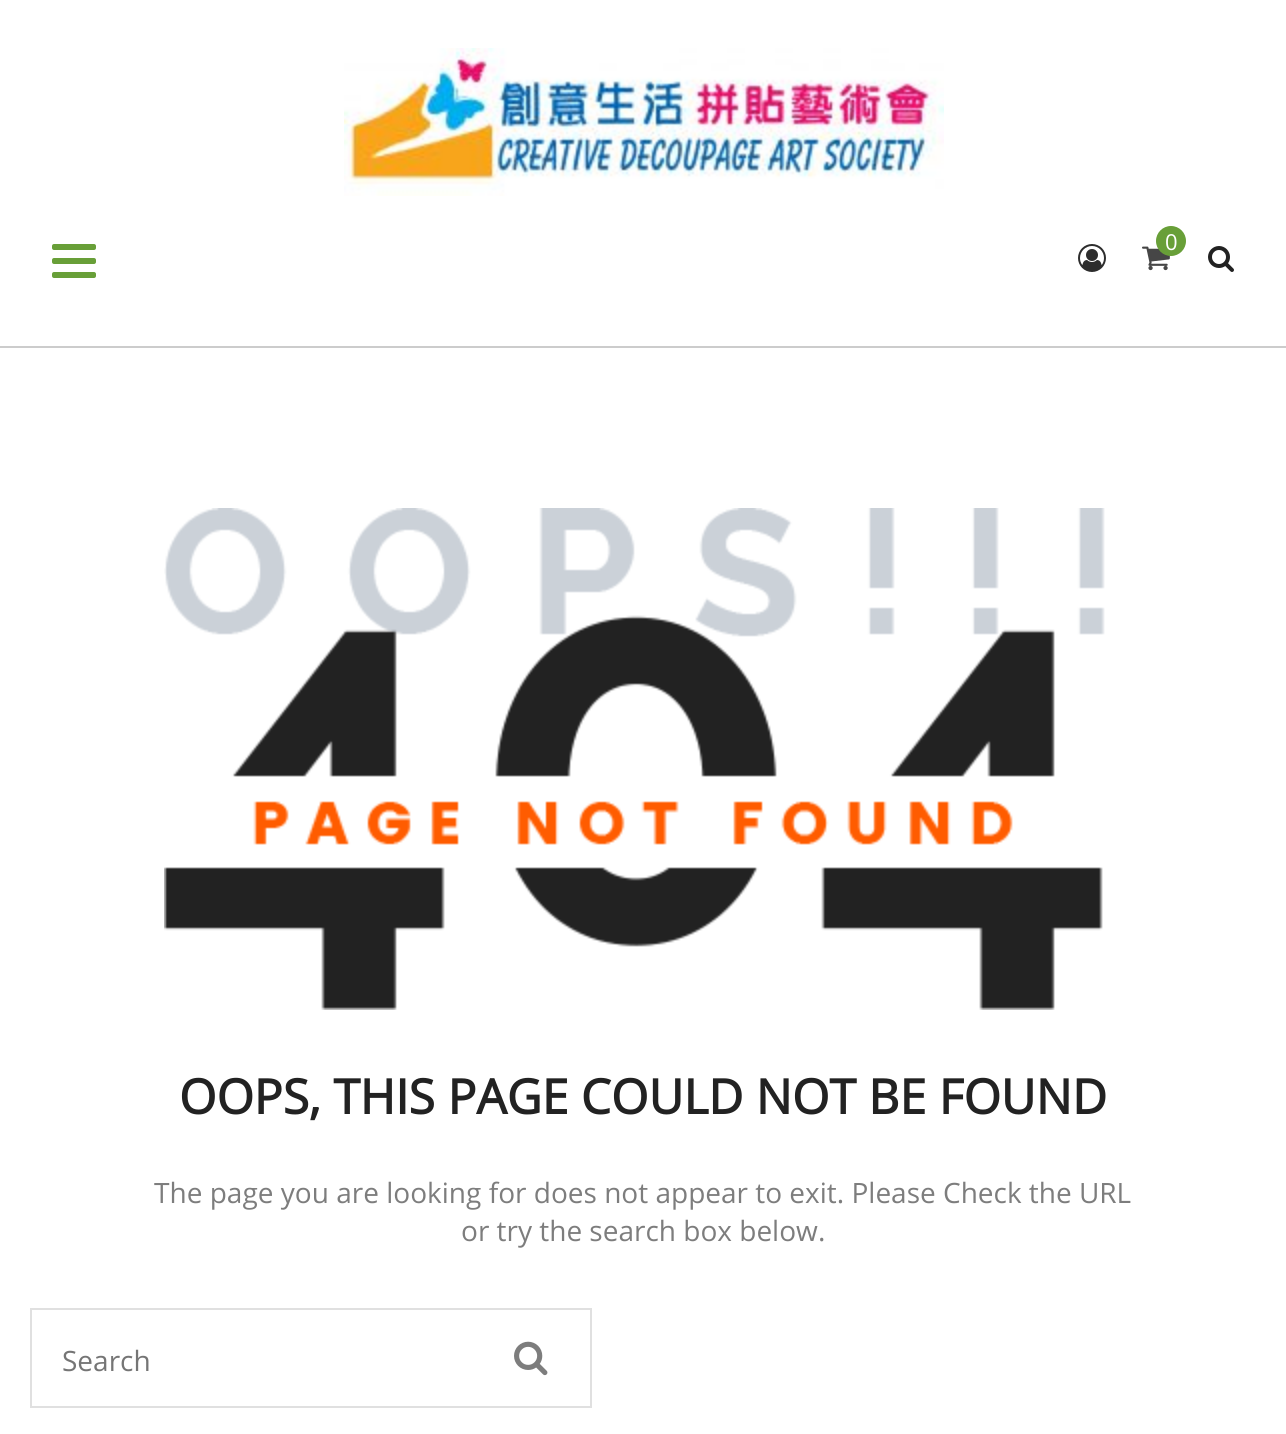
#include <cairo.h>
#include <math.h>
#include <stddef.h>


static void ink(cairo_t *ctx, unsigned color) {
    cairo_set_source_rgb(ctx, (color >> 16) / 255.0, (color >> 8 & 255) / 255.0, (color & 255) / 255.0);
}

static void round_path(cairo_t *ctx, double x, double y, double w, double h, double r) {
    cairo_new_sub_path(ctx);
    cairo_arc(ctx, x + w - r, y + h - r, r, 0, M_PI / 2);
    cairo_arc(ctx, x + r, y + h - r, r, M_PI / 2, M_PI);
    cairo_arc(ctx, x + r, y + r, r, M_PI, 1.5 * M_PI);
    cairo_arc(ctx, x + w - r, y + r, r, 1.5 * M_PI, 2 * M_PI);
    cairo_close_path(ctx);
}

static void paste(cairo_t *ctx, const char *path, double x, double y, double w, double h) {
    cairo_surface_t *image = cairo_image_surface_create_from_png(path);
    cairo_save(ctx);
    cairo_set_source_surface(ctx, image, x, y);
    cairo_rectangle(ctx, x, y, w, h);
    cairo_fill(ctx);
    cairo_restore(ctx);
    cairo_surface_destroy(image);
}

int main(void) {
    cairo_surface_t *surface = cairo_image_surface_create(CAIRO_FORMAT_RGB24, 1286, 1434);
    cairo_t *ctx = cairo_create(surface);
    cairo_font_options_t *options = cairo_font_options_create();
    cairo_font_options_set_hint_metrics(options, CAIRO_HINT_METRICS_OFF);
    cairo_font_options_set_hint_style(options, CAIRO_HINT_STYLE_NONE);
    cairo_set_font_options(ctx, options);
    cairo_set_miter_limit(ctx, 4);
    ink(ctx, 0xFFFFFF);
    cairo_paint(ctx);
    ink(ctx, 0xCCCCCC);
    cairo_rectangle(ctx, 0, 346, 1286, 2);
    cairo_fill(ctx);
    paste(ctx, "media/1.png", 344, 48, 600, 148);
    ink(ctx, 0x689F38);
    round_path(ctx, 52, 244, 44, 6, 2);
    cairo_fill(ctx);
    round_path(ctx, 52, 258, 44, 6, 2);
    cairo_fill(ctx);
    round_path(ctx, 52, 272, 44, 6, 2);
    cairo_fill(ctx);
    paste(ctx, "media/2.png", 1078, 244, 28, 28);
    paste(ctx, "media/3.png", 1142, 246, 28, 25);
    cairo_arc(ctx, 1171, 241, 15, 0, 2 * M_PI);
    cairo_fill(ctx);
    cairo_select_font_face(ctx, "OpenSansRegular", CAIRO_FONT_SLANT_NORMAL, CAIRO_FONT_WEIGHT_NORMAL);
    cairo_set_font_size(ctx, 22);
    ink(ctx, 0xFFFFFF);
    cairo_move_to(ctx, 1165, 250);
    cairo_show_text(ctx, "0");
    paste(ctx, "media/4.png", 1208, 246, 26, 26);
    paste(ctx, "media/5.png", 164, 508, 941, 502);
    cairo_select_font_face(ctx, "OpenSansRegular", CAIRO_FONT_SLANT_NORMAL, CAIRO_FONT_WEIGHT_BOLD);
    cairo_set_font_size(ctx, 48);
    ink(ctx, 0x222222);
    cairo_move_to(ctx, 179, 1114);
    cairo_show_text(ctx, "OOPS, THIS PAGE COULD NOT BE FOUND");
    cairo_select_font_face(ctx, "OpenSansRegular", CAIRO_FONT_SLANT_NORMAL, CAIRO_FONT_WEIGHT_NORMAL);
    cairo_set_font_size(ctx, 28);
    ink(ctx, 0x7D7D7D);
    cairo_move_to(ctx, 154, 1203);
    cairo_show_text(ctx, "The page you are looking for does not appear to exit. Please Check the URL");
    cairo_move_to(ctx, 461, 1241);
    cairo_show_text(ctx, "or try the search box below.");
    cairo_rectangle(ctx, 31, 1309, 560, 98);
    ink(ctx, 0xE0E0E0);
    cairo_stroke(ctx);
    ink(ctx, 0x757575);
    cairo_move_to(ctx, 62, 1371);
    cairo_show_text(ctx, "Search");
    paste(ctx, "media/6.png", 514, 1341, 34, 35);
    cairo_surface_write_to_png(surface, "image.png");
    cairo_font_options_destroy(options);
    cairo_destroy(ctx);
    cairo_surface_destroy(surface);
    return 0;
}
